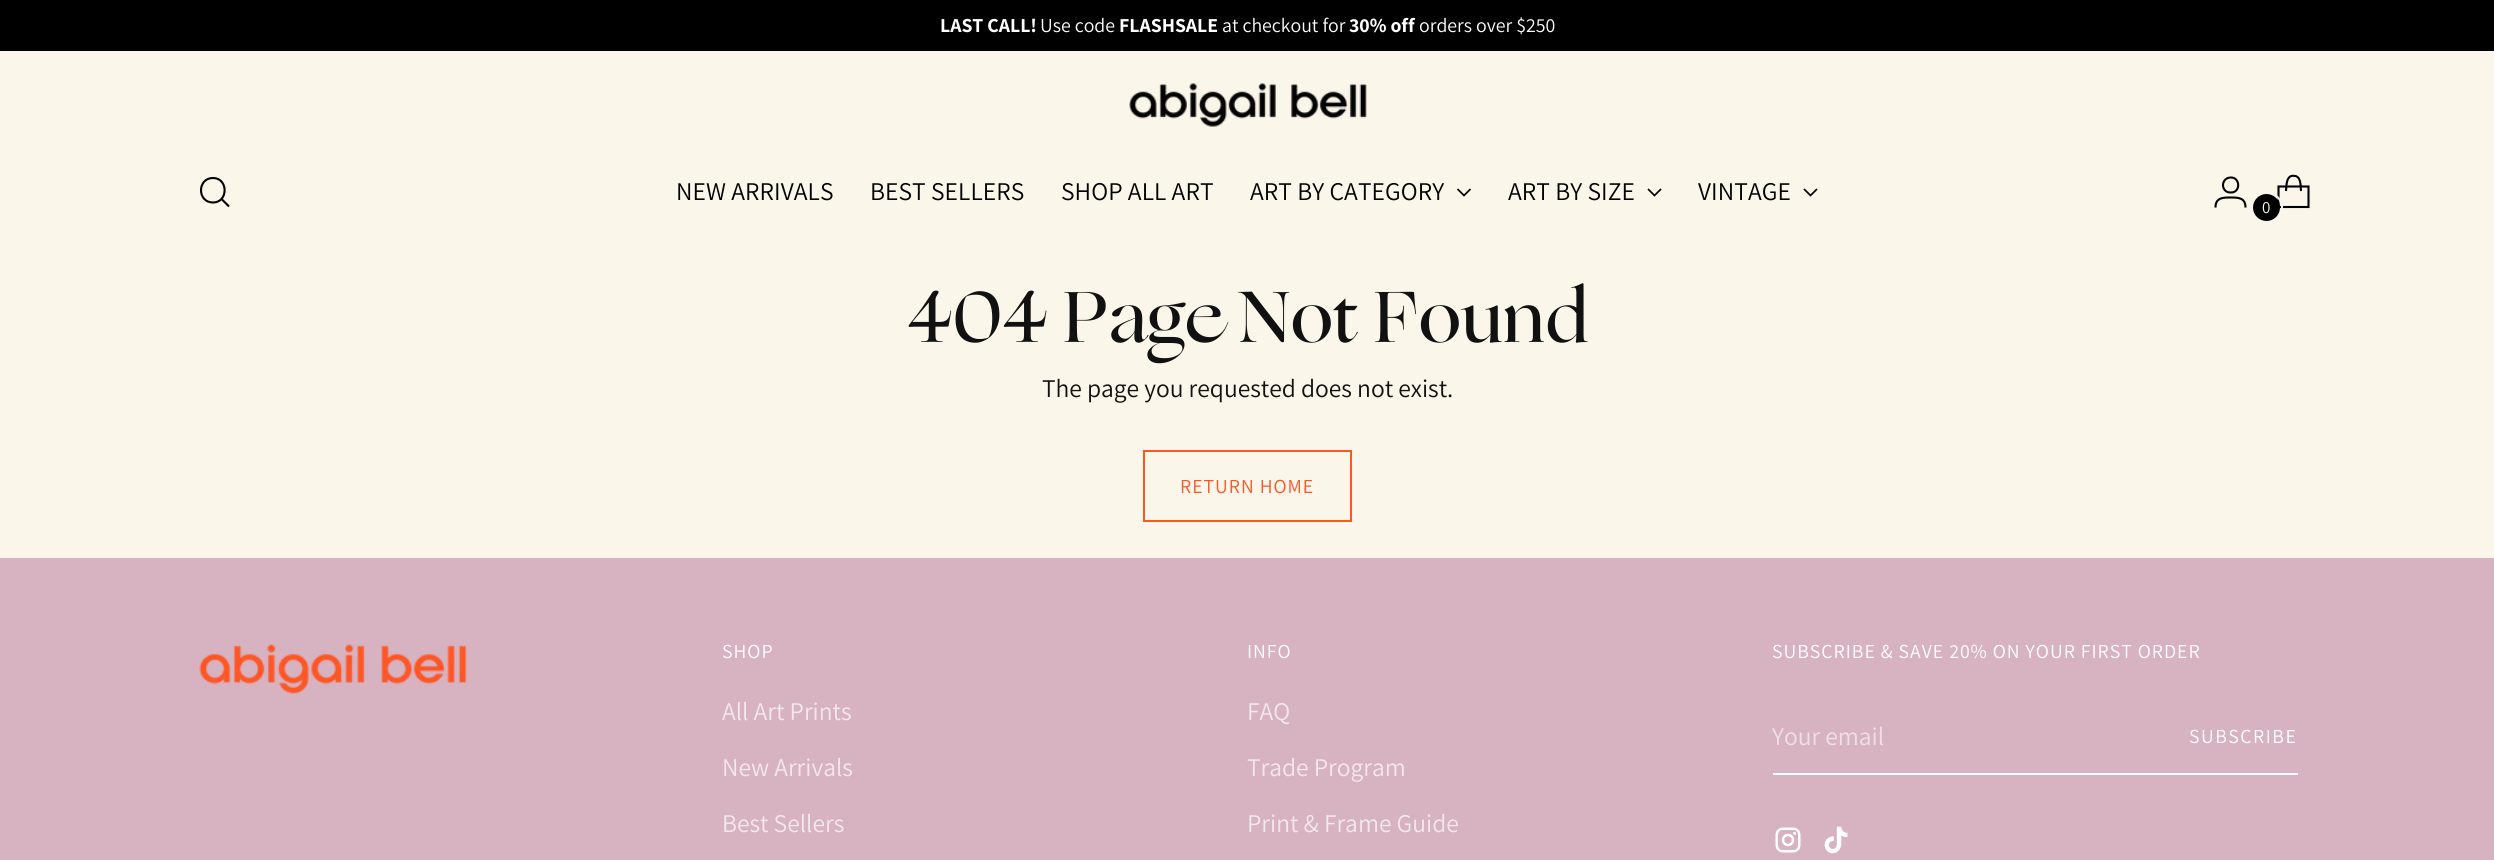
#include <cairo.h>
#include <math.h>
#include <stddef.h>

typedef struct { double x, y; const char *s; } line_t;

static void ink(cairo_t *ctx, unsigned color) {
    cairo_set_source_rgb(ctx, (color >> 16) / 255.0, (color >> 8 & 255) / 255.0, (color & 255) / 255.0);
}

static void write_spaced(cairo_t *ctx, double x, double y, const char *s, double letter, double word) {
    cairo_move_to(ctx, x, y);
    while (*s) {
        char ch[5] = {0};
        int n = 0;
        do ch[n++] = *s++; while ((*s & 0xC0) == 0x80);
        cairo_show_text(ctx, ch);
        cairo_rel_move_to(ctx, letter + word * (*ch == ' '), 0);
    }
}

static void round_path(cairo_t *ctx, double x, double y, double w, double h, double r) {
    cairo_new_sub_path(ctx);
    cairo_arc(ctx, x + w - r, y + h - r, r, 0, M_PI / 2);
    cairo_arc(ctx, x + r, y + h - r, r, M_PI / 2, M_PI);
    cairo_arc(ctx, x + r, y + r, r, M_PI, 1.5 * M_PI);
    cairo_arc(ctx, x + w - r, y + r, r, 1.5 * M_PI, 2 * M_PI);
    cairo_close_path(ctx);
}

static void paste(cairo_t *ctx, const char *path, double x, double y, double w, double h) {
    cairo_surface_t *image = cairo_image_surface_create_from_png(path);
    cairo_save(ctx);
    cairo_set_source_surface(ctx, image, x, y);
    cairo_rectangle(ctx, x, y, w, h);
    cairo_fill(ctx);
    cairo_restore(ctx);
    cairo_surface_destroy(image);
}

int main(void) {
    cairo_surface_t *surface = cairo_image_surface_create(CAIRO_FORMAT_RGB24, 2494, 860);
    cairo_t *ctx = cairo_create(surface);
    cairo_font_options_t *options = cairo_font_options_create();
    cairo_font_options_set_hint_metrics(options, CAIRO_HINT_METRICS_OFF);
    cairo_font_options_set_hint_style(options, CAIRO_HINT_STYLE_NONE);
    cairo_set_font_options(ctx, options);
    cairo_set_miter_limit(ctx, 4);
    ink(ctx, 0xFBF6EA);
    cairo_paint(ctx);
    ink(ctx, 0x000000);
    cairo_rectangle(ctx, 0, 0, 2494, 51);
    cairo_fill(ctx);
    cairo_select_font_face(ctx, "Assistant", CAIRO_FONT_SLANT_NORMAL, CAIRO_FONT_WEIGHT_BOLD);
    cairo_set_font_size(ctx, 19.8);
    ink(ctx, 0xFFFFFF);
    cairo_move_to(ctx, 940, 32);
    cairo_show_text(ctx, "LAST CALL!");
    cairo_select_font_face(ctx, "Assistant", CAIRO_FONT_SLANT_NORMAL, CAIRO_FONT_WEIGHT_NORMAL);
    cairo_move_to(ctx, 1040, 32);
    cairo_show_text(ctx, "Use code");
    cairo_select_font_face(ctx, "Assistant", CAIRO_FONT_SLANT_NORMAL, CAIRO_FONT_WEIGHT_BOLD);
    cairo_move_to(ctx, 1119, 32);
    cairo_show_text(ctx, "FLASHSALE");
    cairo_select_font_face(ctx, "Assistant", CAIRO_FONT_SLANT_NORMAL, CAIRO_FONT_WEIGHT_NORMAL);
    cairo_move_to(ctx, 1222, 32);
    cairo_show_text(ctx, "at checkout for");
    cairo_select_font_face(ctx, "Assistant", CAIRO_FONT_SLANT_NORMAL, CAIRO_FONT_WEIGHT_BOLD);
    cairo_move_to(ctx, 1349, 32);
    cairo_show_text(ctx, "30% off");
    cairo_select_font_face(ctx, "Assistant", CAIRO_FONT_SLANT_NORMAL, CAIRO_FONT_WEIGHT_NORMAL);
    cairo_move_to(ctx, 1419, 32);
    cairo_show_text(ctx, "orders over $250");
    paste(ctx, "media/1.png", 1129, 83, 238, 44);
    cairo_new_path(ctx);
    cairo_move_to(ctx, 213, 202.5);
    cairo_curve_to(ctx, 228.5, 202.5, 228.5, 178, 213, 178);
    cairo_curve_to(ctx, 197, 178, 197, 202.5, 213, 202.5);
    cairo_close_path(ctx);
    ink(ctx, 0x000000);
    cairo_set_line_width(ctx, 2.1);
    cairo_set_line_cap(ctx, CAIRO_LINE_CAP_ROUND);
    cairo_stroke(ctx);
    cairo_new_path(ctx);
    cairo_move_to(ctx, 221.5, 199);
    cairo_line_to(ctx, 229, 206.5);
    cairo_set_line_cap(ctx, CAIRO_LINE_CAP_BUTT);
    cairo_stroke(ctx);
    cairo_set_font_size(ctx, 25.5);
    {
        static const line_t items[] = {
            {676, 200, "NEW ARRIVALS"},
            {870, 200, "BEST SELLERS"},
            {1061, 200, "SHOP ALL ART"},
            {1250, 200, "ART BY CATEGORY"},
        };
        for (size_t i = 0; i < sizeof items / sizeof *items; i++) {
            write_spaced(ctx, items[i].x, items[i].y, items[i].s, 0.1, 0);
        }
    }
    cairo_new_path(ctx);
    cairo_move_to(ctx, 1457.5, 189);
    cairo_line_to(ctx, 1464, 195.5);
    cairo_line_to(ctx, 1470.5, 189);
    cairo_set_line_width(ctx, 1.7);
    cairo_stroke(ctx);
    write_spaced(ctx, 1508, 200, "ART BY SIZE", 0.1, 0);
    cairo_new_path(ctx);
    cairo_move_to(ctx, 1648, 189);
    cairo_line_to(ctx, 1654.5, 195.5);
    cairo_line_to(ctx, 1661, 189);
    cairo_stroke(ctx);
    write_spaced(ctx, 1698, 200, "VINTAGE", 0.1, 0);
    cairo_new_path(ctx);
    cairo_move_to(ctx, 1804, 189);
    cairo_line_to(ctx, 1810.5, 195.5);
    cairo_line_to(ctx, 1817, 189);
    cairo_stroke(ctx);
    cairo_new_path(ctx);
    cairo_move_to(ctx, 2230.5, 192.5);
    cairo_curve_to(ctx, 2241, 193, 2240.5, 177, 2230.5, 177.5);
    cairo_curve_to(ctx, 2220.5, 178, 2220.5, 192.5, 2230.5, 192.5);
    cairo_close_path(ctx);
    cairo_move_to(ctx, 2215.5, 207.5);
    cairo_curve_to(ctx, 2215.5, 197.5, 2223, 197.5, 2230.5, 197.5);
    cairo_curve_to(ctx, 2238, 197.5, 2245.5, 197.5, 2245.5, 207.5);
    cairo_set_line_width(ctx, 2.1);
    cairo_stroke(ctx);
    cairo_new_path(ctx);
    cairo_move_to(ctx, 2301, 191);
    cairo_curve_to(ctx, 2300.5, 187.5, 2301, 183.5, 2299.5, 180);
    cairo_curve_to(ctx, 2299, 178, 2297, 176, 2295, 176);
    cairo_curve_to(ctx, 2286, 174, 2286.5, 185.5, 2286, 191);
    cairo_set_line_join(ctx, CAIRO_LINE_JOIN_BEVEL);
    cairo_stroke(ctx);
    cairo_new_path(ctx);
    cairo_move_to(ctx, 2308.5, 207);
    cairo_line_to(ctx, 2308.5, 186.5);
    cairo_line_to(ctx, 2278.5, 186.5);
    cairo_line_to(ctx, 2278.5, 207);
    cairo_close_path(ctx);
    cairo_set_line_join(ctx, CAIRO_LINE_JOIN_MITER);
    cairo_stroke(ctx);
    round_path(ctx, 2253, 193, 29, 30, 14.5);
    ink(ctx, 0xFBF6EA);
    cairo_set_line_width(ctx, 2);
    cairo_stroke(ctx);
    ink(ctx, 0x000000);
    cairo_arc(ctx, 2266.5, 207.5, 13.5, 0, 2 * M_PI);
    cairo_fill(ctx);
    cairo_set_font_size(ctx, 17);
    ink(ctx, 0xFBF6EA);
    cairo_move_to(ctx, 2262, 213);
    cairo_show_text(ctx, "0");
    cairo_select_font_face(ctx, "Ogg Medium", CAIRO_FONT_SLANT_NORMAL, CAIRO_FONT_WEIGHT_NORMAL);
    cairo_set_font_size(ctx, 72.25);
    ink(ctx, 0x111111);
    write_spaced(ctx, 908, 342, "404 Page Not Found", 0.4, 0);
    cairo_select_font_face(ctx, "Assistant", CAIRO_FONT_SLANT_NORMAL, CAIRO_FONT_WEIGHT_NORMAL);
    cairo_set_font_size(ctx, 25.5);
    cairo_move_to(ctx, 1042, 397);
    cairo_show_text(ctx, "The page you requested does not exist.");
    cairo_rectangle(ctx, 1144, 451, 207, 70);
    ink(ctx, 0xFF5625);
    cairo_stroke(ctx);
    cairo_set_font_size(ctx, 19.8);
    write_spaced(ctx, 1180, 493, "RETURN HOME", 1, 0);
    ink(ctx, 0xD7B2C0);
    cairo_rectangle(ctx, 0, 558, 2494, 302);
    cairo_fill(ctx);
    paste(ctx, "media/2.png", 199, 644, 268, 50);
    ink(ctx, 0xFFFFFF);
    write_spaced(ctx, 722, 658, "SHOP", 1, 0);
    cairo_set_font_size(ctx, 25.5);
    ink(ctx, 0xF3E8EC);
    {
        static const line_t items[] = {
            {722, 720, "All Art Prints"},
            {722, 776, "New Arrivals"},
            {722, 832, "Best Sellers"},
        };
        for (size_t i = 0; i < sizeof items / sizeof *items; i++) {
            cairo_move_to(ctx, items[i].x, items[i].y);
            cairo_show_text(ctx, items[i].s);
        }
    }
    cairo_set_font_size(ctx, 19.8);
    ink(ctx, 0xFFFFFF);
    write_spaced(ctx, 1247, 658, "INFO", 1, 0);
    cairo_set_font_size(ctx, 25.5);
    ink(ctx, 0xF3E8EC);
    {
        static const line_t items[] = {
            {1247, 720, "FAQ"},
            {1247, 776, "Trade Program"},
            {1247, 832, "Print & Frame Guide"},
        };
        for (size_t i = 0; i < sizeof items / sizeof *items; i++) {
            cairo_move_to(ctx, items[i].x, items[i].y);
            cairo_show_text(ctx, items[i].s);
        }
    }
    cairo_set_font_size(ctx, 19.8);
    ink(ctx, 0xFFFFFF);
    write_spaced(ctx, 1772, 658, "SUBSCRIBE & SAVE 20% ON YOUR FIRST ORDER", 1, 0);
    cairo_rectangle(ctx, 1773, 773, 525, 2);
    cairo_fill(ctx);
    cairo_set_font_size(ctx, 25.5);
    ink(ctx, 0xEFE0E6);
    cairo_move_to(ctx, 1772, 745);
    cairo_show_text(ctx, "Your email");
    cairo_set_font_size(ctx, 19.8);
    ink(ctx, 0xFFFFFF);
    write_spaced(ctx, 2189, 743, "SUBSCRIBE", 1.5, 0);
    paste(ctx, "media/3.png", 1775, 827, 26, 26);
    paste(ctx, "media/4.png", 1824, 826, 24, 28);
    cairo_surface_write_to_png(surface, "image.png");
    cairo_font_options_destroy(options);
    cairo_destroy(ctx);
    cairo_surface_destroy(surface);
    return 0;
}
